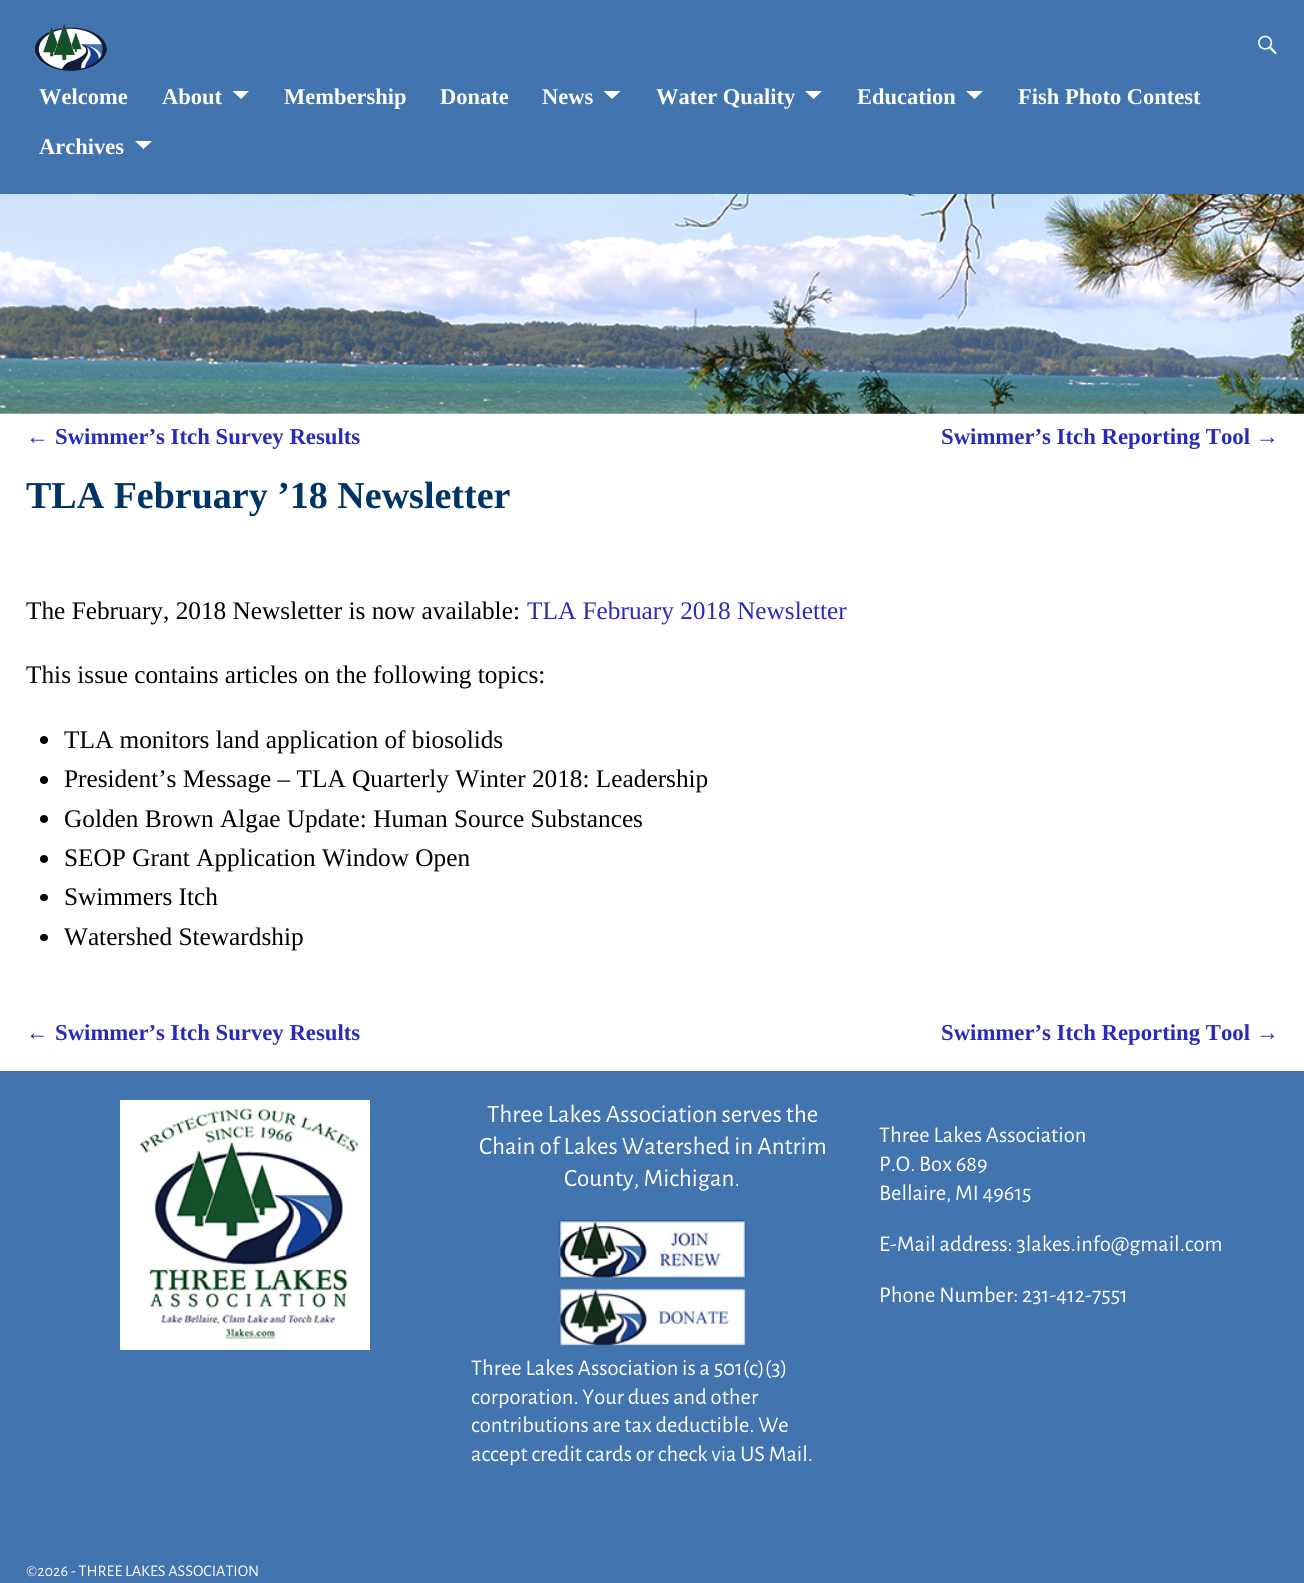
#include <cairo.h>
#include <math.h>
#include <stddef.h>

typedef struct { double x, y; const char *s; } line_t;

static void ink(cairo_t *ctx, unsigned color) {
    cairo_set_source_rgb(ctx, (color >> 16) / 255.0, (color >> 8 & 255) / 255.0, (color & 255) / 255.0);
}

static void round_path(cairo_t *ctx, double x, double y, double w, double h, double r) {
    cairo_new_sub_path(ctx);
    cairo_arc(ctx, x + w - r, y + h - r, r, 0, M_PI / 2);
    cairo_arc(ctx, x + r, y + h - r, r, M_PI / 2, M_PI);
    cairo_arc(ctx, x + r, y + r, r, M_PI, 1.5 * M_PI);
    cairo_arc(ctx, x + w - r, y + r, r, 1.5 * M_PI, 2 * M_PI);
    cairo_close_path(ctx);
}

static void paste(cairo_t *ctx, const char *path, double x, double y, double w, double h) {
    cairo_surface_t *image = cairo_image_surface_create_from_png(path);
    cairo_save(ctx);
    cairo_set_source_surface(ctx, image, x, y);
    cairo_rectangle(ctx, x, y, w, h);
    cairo_fill(ctx);
    cairo_restore(ctx);
    cairo_surface_destroy(image);
}

int main(void) {
    cairo_surface_t *surface = cairo_image_surface_create(CAIRO_FORMAT_RGB24, 1304, 1583);
    cairo_t *ctx = cairo_create(surface);
    cairo_font_options_t *options = cairo_font_options_create();
    cairo_font_options_set_hint_metrics(options, CAIRO_HINT_METRICS_OFF);
    cairo_font_options_set_hint_style(options, CAIRO_HINT_STYLE_NONE);
    cairo_set_font_options(ctx, options);
    cairo_set_miter_limit(ctx, 4);
    ink(ctx, 0xFFFFFF);
    cairo_paint(ctx);
    ink(ctx, 0x4274AF);
    cairo_rectangle(ctx, 0, 0, 1304, 194);
    cairo_fill(ctx);
    paste(ctx, "media/1.png", 34, 23, 74, 49);
    paste(ctx, "media/2.png", 1258, 35, 19, 20);
    cairo_select_font_face(ctx, "Liberation Serif", CAIRO_FONT_SLANT_NORMAL, CAIRO_FONT_WEIGHT_BOLD);
    cairo_set_font_size(ctx, 22.5);
    ink(ctx, 0xFFFFFF);
    cairo_move_to(ctx, 39, 104);
    cairo_show_text(ctx, "Welcome");
    cairo_move_to(ctx, 162, 104);
    cairo_show_text(ctx, "About");
    cairo_new_path(ctx);
    cairo_move_to(ctx, 232.5, 91);
    cairo_line_to(ctx, 249, 91);
    cairo_line_to(ctx, 241, 99);
    cairo_close_path(ctx);
    cairo_fill(ctx);
    {
        static const line_t items[] = {
            {284, 104, "Membership"},
            {440, 104, "Donate"},
            {542, 104, "News"},
        };
        for (size_t i = 0; i < sizeof items / sizeof *items; i++) {
            cairo_move_to(ctx, items[i].x, items[i].y);
            cairo_show_text(ctx, items[i].s);
        }
    }
    cairo_new_path(ctx);
    cairo_move_to(ctx, 603.5, 91);
    cairo_line_to(ctx, 620.5, 91);
    cairo_line_to(ctx, 612, 99);
    cairo_close_path(ctx);
    cairo_fill(ctx);
    cairo_move_to(ctx, 656, 104);
    cairo_show_text(ctx, "Water Quality");
    cairo_new_path(ctx);
    cairo_move_to(ctx, 805, 91);
    cairo_line_to(ctx, 822, 91);
    cairo_line_to(ctx, 813.5, 99);
    cairo_close_path(ctx);
    cairo_fill(ctx);
    cairo_move_to(ctx, 857, 104);
    cairo_show_text(ctx, "Education");
    cairo_new_path(ctx);
    cairo_move_to(ctx, 966, 91);
    cairo_line_to(ctx, 983, 91);
    cairo_line_to(ctx, 974.5, 99);
    cairo_close_path(ctx);
    cairo_fill(ctx);
    cairo_move_to(ctx, 1018, 104);
    cairo_show_text(ctx, "Fish Photo Contest");
    cairo_move_to(ctx, 39, 154);
    cairo_show_text(ctx, "Archives");
    cairo_new_path(ctx);
    cairo_move_to(ctx, 135, 141);
    cairo_line_to(ctx, 152, 141);
    cairo_line_to(ctx, 143.5, 149);
    cairo_close_path(ctx);
    cairo_fill(ctx);
    paste(ctx, "media/3.png", 0, 194, 1304, 220);
    cairo_select_font_face(ctx, "Liberation Serif", CAIRO_FONT_SLANT_NORMAL, CAIRO_FONT_WEIGHT_NORMAL);
    cairo_set_font_size(ctx, 22.75);
    ink(ctx, 0x2A2AB8);
    cairo_move_to(ctx, 26, 444);
    cairo_show_text(ctx, "←");
    cairo_select_font_face(ctx, "Liberation Serif", CAIRO_FONT_SLANT_NORMAL, CAIRO_FONT_WEIGHT_BOLD);
    cairo_move_to(ctx, 55, 444);
    cairo_show_text(ctx, "Swimmer’s Itch Survey Results");
    cairo_move_to(ctx, 941, 444);
    cairo_show_text(ctx, "Swimmer’s Itch Reporting Tool");
    cairo_select_font_face(ctx, "Liberation Serif", CAIRO_FONT_SLANT_NORMAL, CAIRO_FONT_WEIGHT_NORMAL);
    cairo_move_to(ctx, 1256, 444);
    cairo_show_text(ctx, "→");
    cairo_select_font_face(ctx, "Liberation Serif", CAIRO_FONT_SLANT_NORMAL, CAIRO_FONT_WEIGHT_BOLD);
    cairo_set_font_size(ctx, 38);
    ink(ctx, 0x003366);
    cairo_move_to(ctx, 26, 508);
    cairo_show_text(ctx, "TLA February ’18 Newsletter");
    cairo_select_font_face(ctx, "Liberation Serif", CAIRO_FONT_SLANT_NORMAL, CAIRO_FONT_WEIGHT_NORMAL);
    cairo_set_font_size(ctx, 25.3);
    ink(ctx, 0x000000);
    cairo_move_to(ctx, 26, 619);
    cairo_show_text(ctx, "The February, 2018 Newsletter is now available:");
    ink(ctx, 0x2A2AB8);
    cairo_move_to(ctx, 527, 619);
    cairo_show_text(ctx, "TLA February 2018 Newsletter");
    ink(ctx, 0x000000);
    cairo_move_to(ctx, 26, 683);
    cairo_show_text(ctx, "This issue contains articles on the following topics:");
    cairo_new_path(ctx);
    cairo_arc(ctx, 44, 740, 4, 0, 2 * M_PI);
    cairo_fill(ctx);
    cairo_move_to(ctx, 64, 748);
    cairo_show_text(ctx, "TLA monitors land application of biosolids");
    cairo_new_path(ctx);
    cairo_arc(ctx, 44, 780, 4, 0, 2 * M_PI);
    cairo_fill(ctx);
    cairo_move_to(ctx, 64, 787);
    cairo_show_text(ctx, "President’s Message – TLA Quarterly Winter 2018: Leadership");
    cairo_new_path(ctx);
    cairo_arc(ctx, 44, 819, 4, 0, 2 * M_PI);
    cairo_fill(ctx);
    cairo_move_to(ctx, 64, 827);
    cairo_show_text(ctx, "Golden Brown Algae Update: Human Source Substances");
    cairo_new_path(ctx);
    cairo_arc(ctx, 44, 859, 4, 0, 2 * M_PI);
    cairo_fill(ctx);
    cairo_move_to(ctx, 64, 866);
    cairo_show_text(ctx, "SEOP Grant Application Window Open");
    round_path(ctx, 40, 894, 8, 7, 3.5);
    cairo_fill(ctx);
    cairo_move_to(ctx, 64, 905);
    cairo_show_text(ctx, "Swimmers Itch");
    round_path(ctx, 40, 934, 8, 7, 3.5);
    cairo_fill(ctx);
    cairo_move_to(ctx, 64, 945);
    cairo_show_text(ctx, "Watershed Stewardship");
    cairo_set_font_size(ctx, 22.75);
    ink(ctx, 0x2A2AB8);
    cairo_move_to(ctx, 26, 1040);
    cairo_show_text(ctx, "←");
    cairo_select_font_face(ctx, "Liberation Serif", CAIRO_FONT_SLANT_NORMAL, CAIRO_FONT_WEIGHT_BOLD);
    cairo_move_to(ctx, 55, 1040);
    cairo_show_text(ctx, "Swimmer’s Itch Survey Results");
    cairo_move_to(ctx, 941, 1040);
    cairo_show_text(ctx, "Swimmer’s Itch Reporting Tool");
    cairo_select_font_face(ctx, "Liberation Serif", CAIRO_FONT_SLANT_NORMAL, CAIRO_FONT_WEIGHT_NORMAL);
    cairo_move_to(ctx, 1256, 1040);
    cairo_show_text(ctx, "→");
    ink(ctx, 0x4274AF);
    cairo_rectangle(ctx, 0, 1071, 1304, 512);
    cairo_fill(ctx);
    paste(ctx, "media/4.png", 120, 1100, 250, 250);
    cairo_select_font_face(ctx, "Alegreya Sans", CAIRO_FONT_SLANT_NORMAL, CAIRO_FONT_WEIGHT_NORMAL);
    cairo_set_font_size(ctx, 25);
    ink(ctx, 0xFFFFFF);
    {
        static const line_t items[] = {
            {487, 1122, "Three Lakes Association serves the"},
            {479, 1154, "Chain of Lakes Watershed in Antrim"},
            {564, 1186, "County, Michigan."},
        };
        for (size_t i = 0; i < sizeof items / sizeof *items; i++) {
            cairo_move_to(ctx, items[i].x, items[i].y);
            cairo_show_text(ctx, items[i].s);
        }
    }
    paste(ctx, "media/5.png", 558, 1220, 189, 59);
    paste(ctx, "media/6.png", 558, 1287, 189, 60);
    cairo_set_font_size(ctx, 22.5);
    {
        static const line_t items[] = {
            {471, 1375, "Three Lakes Association is a 501(c)(3)"},
            {471, 1404, "corporation. Your dues and other"},
            {471, 1432, "contributions are tax deductible. We"},
            {471, 1461, "accept credit cards or check via US Mail."},
            {879, 1142, "Three Lakes Association"},
            {879, 1171, "P.O. Box 689"},
            {879, 1200, "Bellaire, MI 49615"},
            {879, 1251, "E-Mail address: 3lakes.info@gmail.com"},
            {879, 1302, "Phone Number: 231-412-7551"},
        };
        for (size_t i = 0; i < sizeof items / sizeof *items; i++) {
            cairo_move_to(ctx, items[i].x, items[i].y);
            cairo_show_text(ctx, items[i].s);
        }
    }
    cairo_set_font_size(ctx, 16.25);
    cairo_move_to(ctx, 26, 1576);
    cairo_show_text(ctx, "©2026 - THREE LAKES ASSOCIATION");
    cairo_surface_write_to_png(surface, "image.png");
    cairo_font_options_destroy(options);
    cairo_destroy(ctx);
    cairo_surface_destroy(surface);
    return 0;
}
